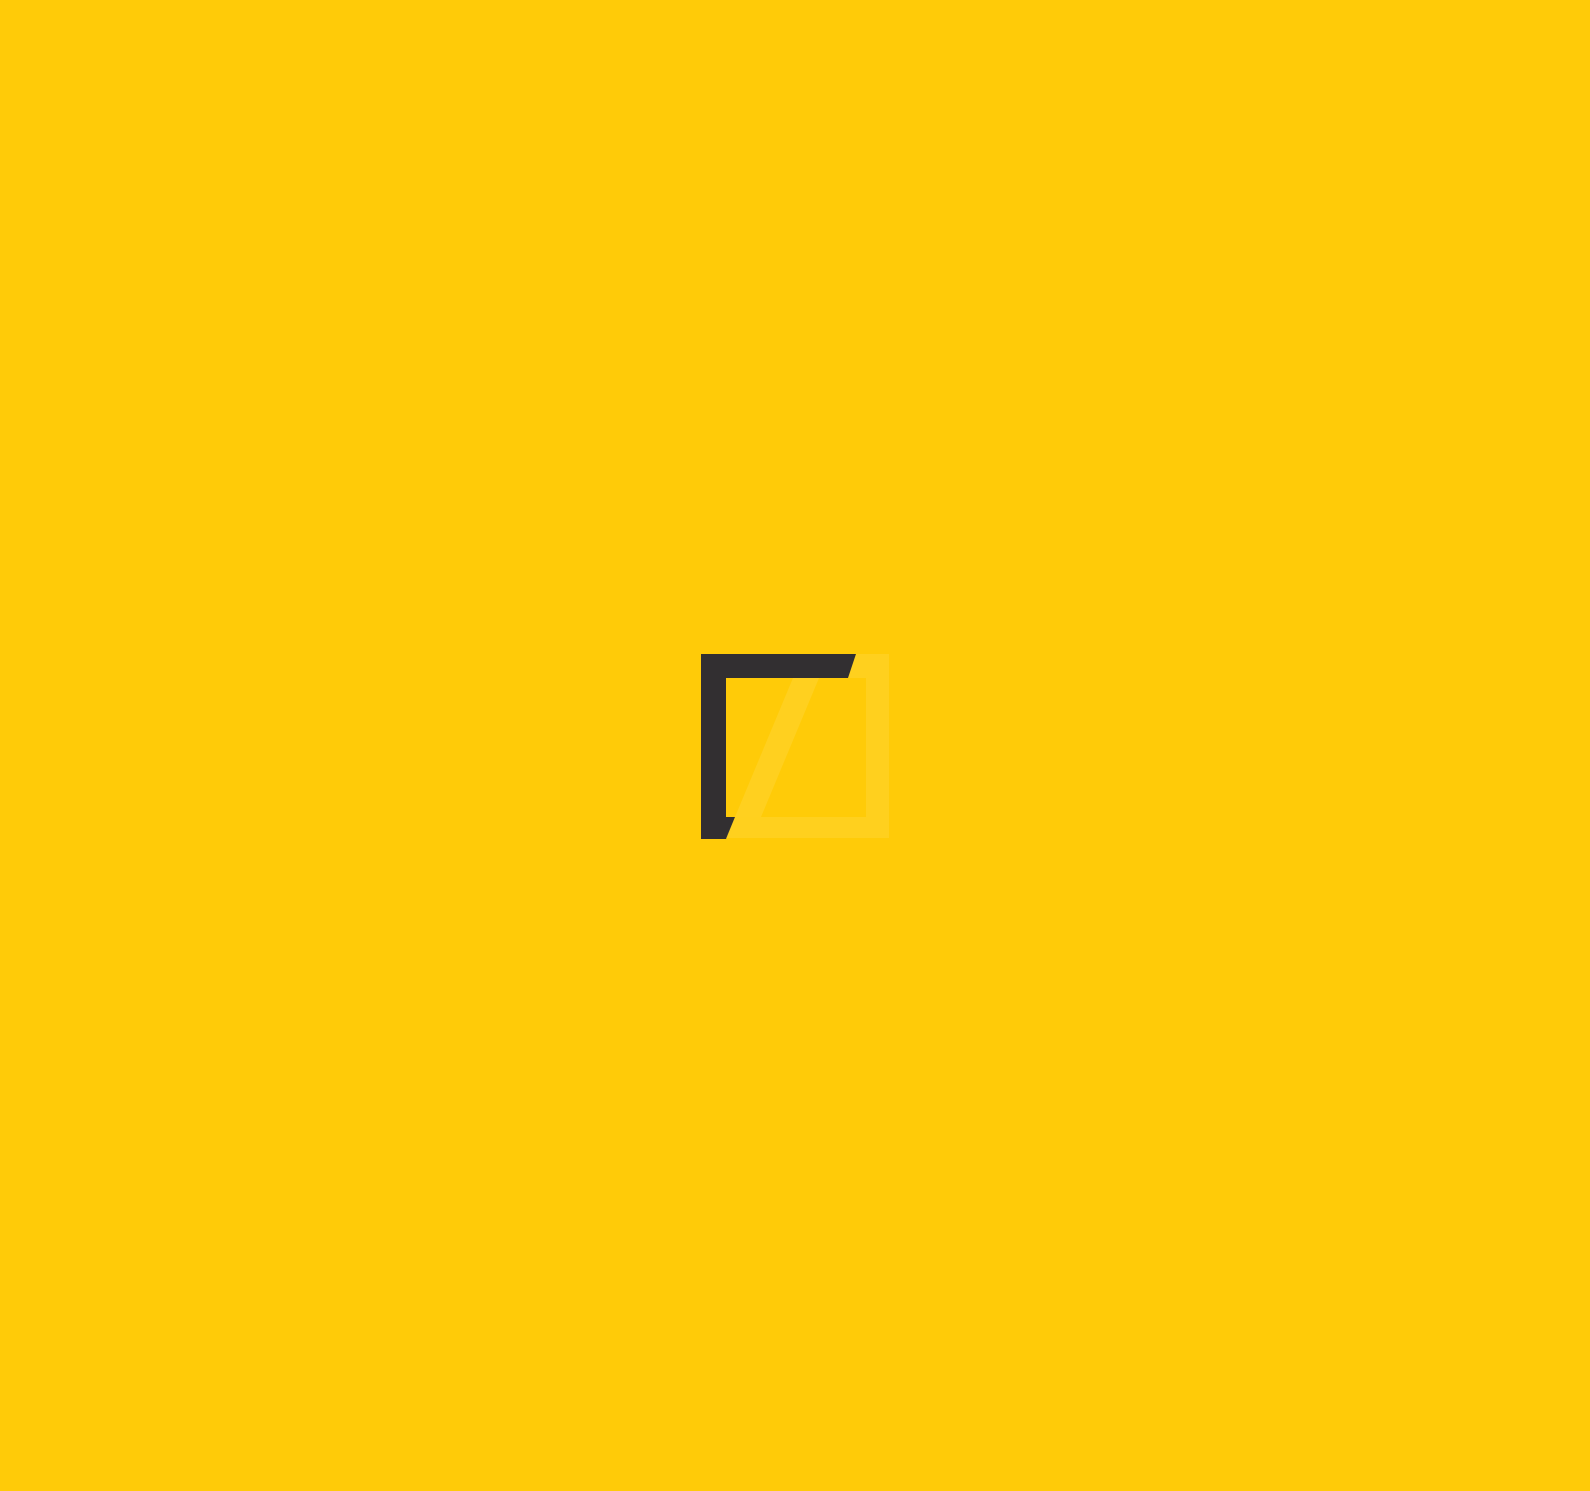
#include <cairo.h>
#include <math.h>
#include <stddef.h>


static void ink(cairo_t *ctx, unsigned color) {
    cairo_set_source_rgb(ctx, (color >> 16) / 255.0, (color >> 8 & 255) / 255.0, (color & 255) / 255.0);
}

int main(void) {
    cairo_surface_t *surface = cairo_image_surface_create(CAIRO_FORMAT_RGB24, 1590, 1491);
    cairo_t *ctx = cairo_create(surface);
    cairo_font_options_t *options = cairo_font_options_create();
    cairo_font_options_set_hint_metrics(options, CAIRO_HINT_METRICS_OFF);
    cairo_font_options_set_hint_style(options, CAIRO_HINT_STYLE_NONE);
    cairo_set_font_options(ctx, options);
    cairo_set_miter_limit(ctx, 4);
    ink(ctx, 0xFFCB08);
    cairo_paint(ctx);
    ink(ctx, 0xFFD01F);
    cairo_new_path(ctx);
    cairo_move_to(ctx, 819, 678);
    cairo_line_to(ctx, 793, 678);
    cairo_line_to(ctx, 735, 817);
    cairo_line_to(ctx, 761, 817);
    cairo_fill(ctx);
    ink(ctx, 0x322F31);
    cairo_new_path(ctx);
    cairo_move_to(ctx, 726, 817);
    cairo_line_to(ctx, 726, 678);
    cairo_line_to(ctx, 848, 678);
    cairo_line_to(ctx, 856, 654);
    cairo_line_to(ctx, 701, 654);
    cairo_line_to(ctx, 701, 839);
    cairo_line_to(ctx, 726, 839);
    cairo_line_to(ctx, 735, 817);
    cairo_fill(ctx);
    cairo_set_source_rgba(ctx, 1, 1, 1, 0.09);
    cairo_new_path(ctx);
    cairo_move_to(ctx, 866, 678);
    cairo_line_to(ctx, 866, 817);
    cairo_line_to(ctx, 735, 817);
    cairo_line_to(ctx, 726, 838);
    cairo_line_to(ctx, 889, 838);
    cairo_line_to(ctx, 889, 654);
    cairo_line_to(ctx, 856, 654);
    cairo_line_to(ctx, 848, 678);
    cairo_fill(ctx);
    cairo_surface_write_to_png(surface, "image.png");
    cairo_font_options_destroy(options);
    cairo_destroy(ctx);
    cairo_surface_destroy(surface);
    return 0;
}
